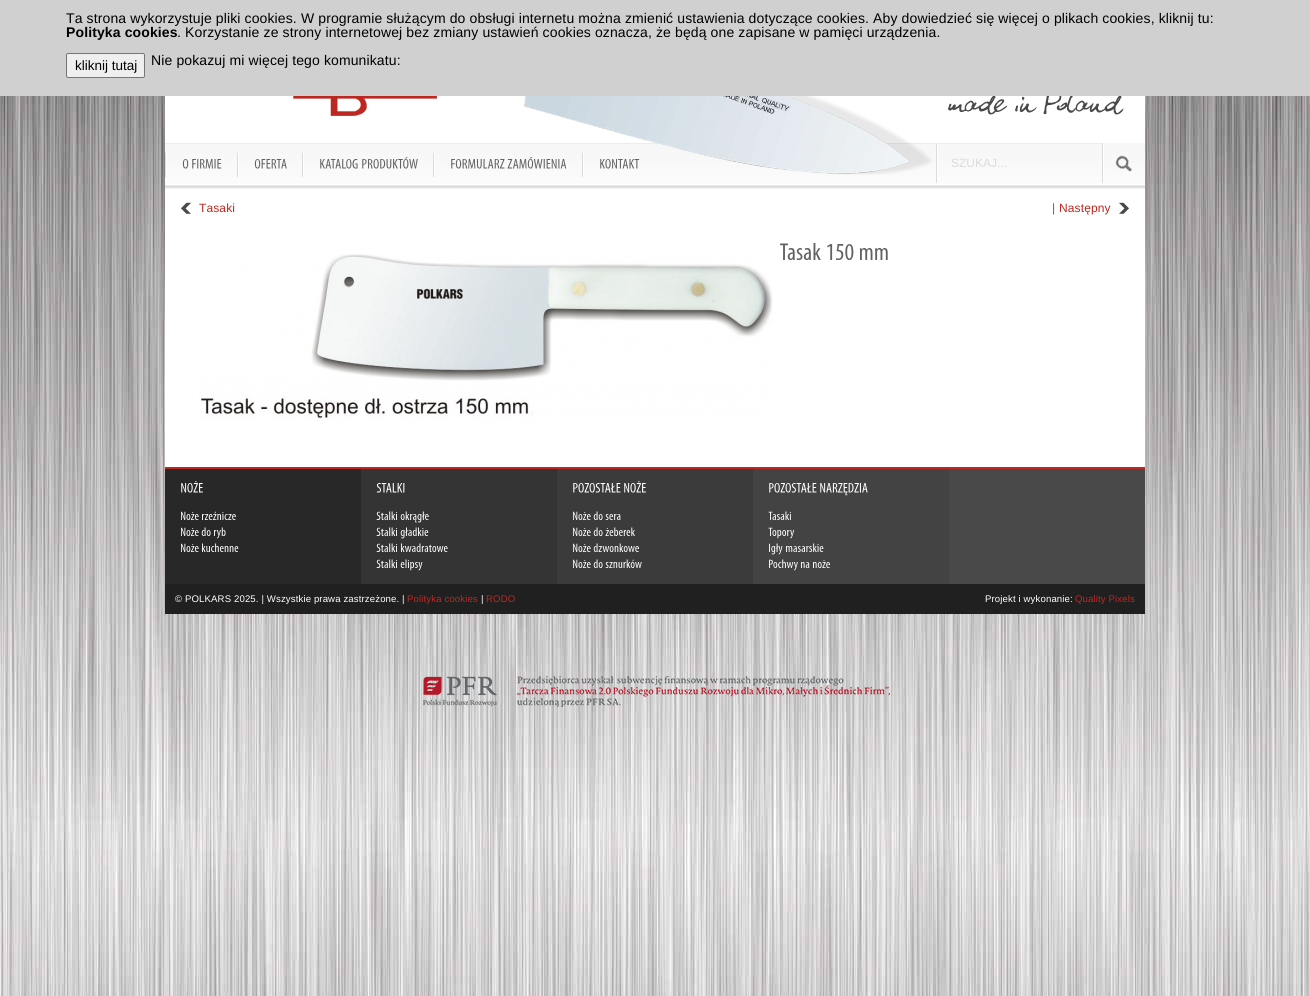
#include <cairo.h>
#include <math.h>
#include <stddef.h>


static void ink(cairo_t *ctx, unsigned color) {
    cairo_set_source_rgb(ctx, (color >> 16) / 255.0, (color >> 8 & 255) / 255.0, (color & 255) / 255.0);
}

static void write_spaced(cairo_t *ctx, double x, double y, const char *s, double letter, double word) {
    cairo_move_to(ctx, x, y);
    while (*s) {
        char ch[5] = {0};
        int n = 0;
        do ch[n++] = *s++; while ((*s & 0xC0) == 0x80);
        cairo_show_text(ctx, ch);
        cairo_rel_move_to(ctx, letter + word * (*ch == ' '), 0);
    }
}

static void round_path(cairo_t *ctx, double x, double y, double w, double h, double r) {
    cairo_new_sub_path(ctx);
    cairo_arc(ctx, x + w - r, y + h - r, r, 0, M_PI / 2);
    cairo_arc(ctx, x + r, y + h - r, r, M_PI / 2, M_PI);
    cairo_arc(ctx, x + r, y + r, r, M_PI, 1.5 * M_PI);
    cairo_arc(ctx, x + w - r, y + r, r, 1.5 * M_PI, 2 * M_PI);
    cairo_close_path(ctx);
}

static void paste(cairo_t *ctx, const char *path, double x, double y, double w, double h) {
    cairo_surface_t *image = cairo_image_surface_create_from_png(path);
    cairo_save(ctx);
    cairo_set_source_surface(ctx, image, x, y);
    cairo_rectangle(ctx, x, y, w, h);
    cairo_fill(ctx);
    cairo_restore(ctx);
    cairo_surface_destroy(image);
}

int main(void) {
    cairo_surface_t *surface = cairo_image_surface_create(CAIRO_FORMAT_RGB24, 1310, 996);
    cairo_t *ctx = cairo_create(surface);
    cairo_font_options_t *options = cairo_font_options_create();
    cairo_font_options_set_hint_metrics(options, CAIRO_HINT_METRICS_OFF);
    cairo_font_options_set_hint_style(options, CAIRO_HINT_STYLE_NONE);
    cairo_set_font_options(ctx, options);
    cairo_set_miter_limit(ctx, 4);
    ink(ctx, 0xFFFFFF);
    cairo_paint(ctx);
    paste(ctx, "media/1.png", 0, 96, 1310, 900);
    ink(ctx, 0xD0D0D0);
    cairo_rectangle(ctx, 0, 0, 1310, 96);
    cairo_fill(ctx);
    cairo_select_font_face(ctx, "Liberation Sans", CAIRO_FONT_SLANT_NORMAL, CAIRO_FONT_WEIGHT_NORMAL);
    cairo_set_font_size(ctx, 14);
    ink(ctx, 0x000000);
    write_spaced(ctx, 66, 23, "Ta strona wykorzystuje pliki cookies. W programie służącym do obsługi internetu można zmienić ustawienia dotyczące cookies. Aby dowiedzieć się więcej o plikach cookies, kliknij tu:", 0.12, 0);
    cairo_select_font_face(ctx, "Liberation Sans", CAIRO_FONT_SLANT_NORMAL, CAIRO_FONT_WEIGHT_BOLD);
    write_spaced(ctx, 66, 37, "Polityka cookies", 0.12, 0);
    cairo_select_font_face(ctx, "Liberation Sans", CAIRO_FONT_SLANT_NORMAL, CAIRO_FONT_WEIGHT_NORMAL);
    write_spaced(ctx, 177, 37, ". Korzystanie ze strony internetowej bez zmiany ustawień cookies oznacza, że będą one zapisane w pamięci urządzenia.", 0.12, 0);
    ink(ctx, 0xEFEFEF);
    round_path(ctx, 66.5, 53.5, 78, 24, 1.5);
    cairo_fill_preserve(ctx);
    ink(ctx, 0x767676);
    cairo_set_line_width(ctx, 1);
    cairo_stroke(ctx);
    cairo_set_font_size(ctx, 13.5);
    ink(ctx, 0x000000);
    cairo_move_to(ctx, 75, 70);
    cairo_show_text(ctx, "kliknij tutaj");
    cairo_set_font_size(ctx, 14);
    write_spaced(ctx, 151, 65, "Nie pokazuj mi więcej tego komunikatu:", 0.12, 0);
    ink(ctx, 0xFFFFFF);
    cairo_rectangle(ctx, 165, 96, 980, 371);
    cairo_fill(ctx);
    paste(ctx, "media/2.png", 293, 96, 144, 20);
    paste(ctx, "media/3.png", 523, 96, 601, 47);
    paste(ctx, "media/5.png", 165, 143, 980, 46);
    paste(ctx, "media/4.png", 658, 143, 274, 32);
    paste(ctx, "media/6.png", 165, 153, 2, 24);
    paste(ctx, "media/7.png", 182, 159, 7, 10);
    paste(ctx, "media/8.png", 192, 159, 30, 10);
    paste(ctx, "media/6.png", 237, 153, 2, 24);
    paste(ctx, "media/9.png", 254, 159, 33, 10);
    paste(ctx, "media/6.png", 302, 153, 2, 24);
    paste(ctx, "media/10.png", 320, 159, 38, 10);
    paste(ctx, "media/11.png", 362, 157, 56, 12);
    paste(ctx, "media/6.png", 433, 153, 2, 24);
    paste(ctx, "media/12.png", 451, 159, 54, 10);
    paste(ctx, "media/13.png", 507, 157, 60, 12);
    paste(ctx, "media/6.png", 582, 153, 2, 24);
    paste(ctx, "media/14.png", 600, 159, 40, 10);
    paste(ctx, "media/15.png", 936, 143, 168, 40);
    cairo_set_font_size(ctx, 12);
    ink(ctx, 0xDBDBDB);
    cairo_move_to(ctx, 951, 167);
    cairo_show_text(ctx, "SZUKAJ...");
    paste(ctx, "media/16.png", 1104, 143, 41, 29);
    paste(ctx, "media/17.png", 181, 202, 10, 12);
    ink(ctx, 0xBC2821);
    write_spaced(ctx, 199, 212, "Tasaki", 0.12, 0);
    paste(ctx, "media/18.png", 199, 254, 574, 167);
    ink(ctx, 0x626262);
    write_spaced(ctx, 1052, 212, "|", 0.12, 0);
    ink(ctx, 0xBC2821);
    write_spaced(ctx, 1059, 212, "Następny", 0.12, 0);
    paste(ctx, "media/19.png", 1119, 202, 10, 12);
    paste(ctx, "media/20.png", 780, 243, 41, 17);
    paste(ctx, "media/21.png", 827, 244, 27, 16);
    paste(ctx, "media/22.png", 859, 248, 29, 12);
    cairo_rectangle(ctx, 165, 467, 980, 2);
    cairo_fill(ctx);
    ink(ctx, 0x282828);
    cairo_rectangle(ctx, 165, 469, 196, 115);
    cairo_fill(ctx);
    paste(ctx, "media/23.png", 181, 481, 22, 12);
    paste(ctx, "media/24.png", 181, 511, 18, 9);
    paste(ctx, "media/25.png", 201, 511, 35, 9);
    paste(ctx, "media/24.png", 181, 527, 18, 9);
    paste(ctx, "media/26.png", 201, 527, 10, 9);
    paste(ctx, "media/27.png", 213, 527, 13, 12);
    paste(ctx, "media/24.png", 181, 543, 18, 9);
    paste(ctx, "media/28.png", 202, 543, 37, 9);
    ink(ctx, 0x343434);
    cairo_rectangle(ctx, 361, 469, 196, 115);
    cairo_fill(ctx);
    paste(ctx, "media/29.png", 376, 483, 29, 10);
    paste(ctx, "media/30.png", 376, 511, 21, 9);
    paste(ctx, "media/31.png", 400, 511, 29, 12);
    paste(ctx, "media/30.png", 376, 527, 21, 9);
    paste(ctx, "media/32.png", 400, 527, 29, 12);
    paste(ctx, "media/30.png", 376, 543, 21, 9);
    paste(ctx, "media/33.png", 401, 543, 47, 9);
    paste(ctx, "media/30.png", 376, 559, 21, 9);
    paste(ctx, "media/34.png", 400, 559, 23, 12);
    ink(ctx, 0x3B3B3B);
    cairo_rectangle(ctx, 557, 469, 196, 115);
    cairo_fill(ctx);
    paste(ctx, "media/35.png", 573, 483, 48, 10);
    paste(ctx, "media/36.png", 624, 481, 22, 12);
    paste(ctx, "media/37.png", 573, 511, 18, 9);
    paste(ctx, "media/38.png", 593, 511, 10, 9);
    paste(ctx, "media/39.png", 605, 514, 16, 6);
    paste(ctx, "media/37.png", 573, 527, 18, 9);
    paste(ctx, "media/38.png", 593, 527, 10, 9);
    paste(ctx, "media/40.png", 605, 527, 30, 9);
    paste(ctx, "media/37.png", 573, 543, 18, 9);
    paste(ctx, "media/41.png", 593, 543, 46, 9);
    paste(ctx, "media/37.png", 573, 559, 18, 9);
    paste(ctx, "media/38.png", 593, 559, 10, 9);
    paste(ctx, "media/42.png", 605, 559, 37, 9);
    ink(ctx, 0x434343);
    cairo_rectangle(ctx, 753, 469, 196, 115);
    cairo_fill(ctx);
    paste(ctx, "media/43.png", 769, 483, 48, 10);
    paste(ctx, "media/44.png", 820, 483, 48, 13);
    paste(ctx, "media/45.png", 768, 511, 23, 9);
    paste(ctx, "media/46.png", 768, 527, 26, 12);
    paste(ctx, "media/47.png", 769, 543, 14, 12);
    paste(ctx, "media/48.png", 786, 543, 38, 9);
    paste(ctx, "media/49.png", 769, 559, 29, 12);
    paste(ctx, "media/50.png", 801, 562, 9, 6);
    paste(ctx, "media/51.png", 813, 560, 17, 8);
    ink(ctx, 0x494949);
    cairo_rectangle(ctx, 949, 469, 196, 115);
    cairo_fill(ctx);
    ink(ctx, 0x202020);
    cairo_rectangle(ctx, 165, 584, 980, 30);
    cairo_fill(ctx);
    cairo_set_font_size(ctx, 9.6);
    ink(ctx, 0xFFFFFF);
    write_spaced(ctx, 175, 602, "© POLKARS 2025. | Wszystkie prawa zastrzeżone. |", 0.12, 0);
    ink(ctx, 0xBC2821);
    write_spaced(ctx, 407, 602, "Polityka cookies", 0.12, 0);
    ink(ctx, 0xFFFFFF);
    write_spaced(ctx, 481, 602, "|", 0.12, 0);
    ink(ctx, 0xBC2821);
    write_spaced(ctx, 486, 602, "RODO", 0.12, 0);
    ink(ctx, 0xFFFFFF);
    write_spaced(ctx, 985, 602, "Projekt i wykonanie:", 0.12, 0);
    ink(ctx, 0xBC2821);
    write_spaced(ctx, 1075, 602, "Quality Pixels", 0.12, 0);
    paste(ctx, "media/52.png", 423, 676, 467, 31);
    cairo_surface_write_to_png(surface, "image.png");
    cairo_font_options_destroy(options);
    cairo_destroy(ctx);
    cairo_surface_destroy(surface);
    return 0;
}
